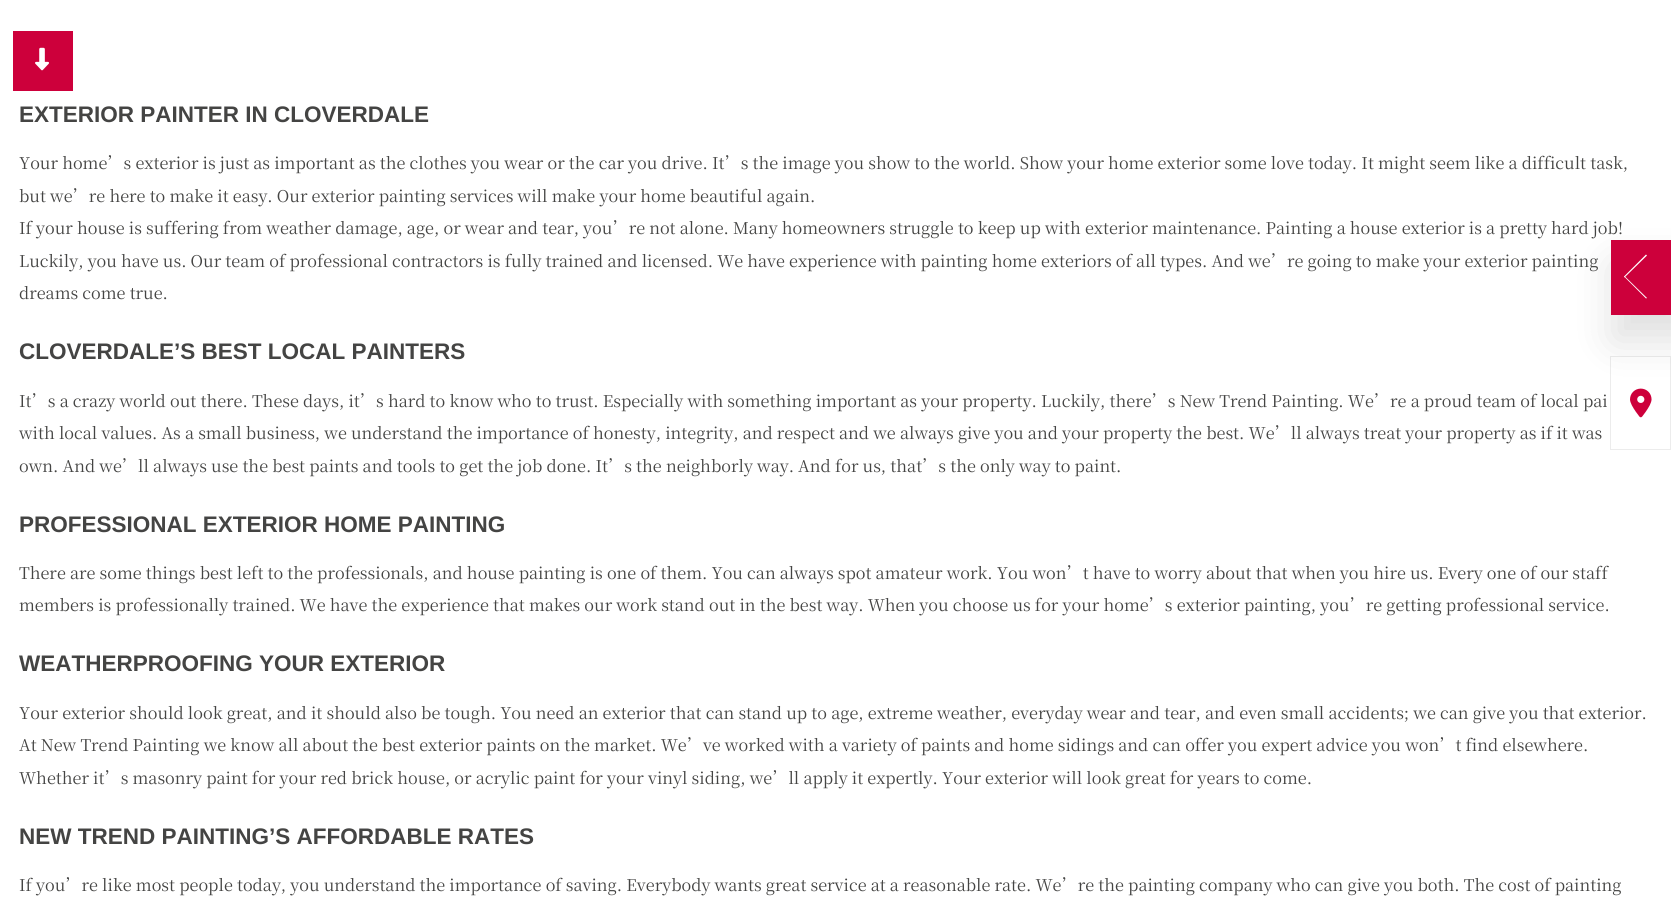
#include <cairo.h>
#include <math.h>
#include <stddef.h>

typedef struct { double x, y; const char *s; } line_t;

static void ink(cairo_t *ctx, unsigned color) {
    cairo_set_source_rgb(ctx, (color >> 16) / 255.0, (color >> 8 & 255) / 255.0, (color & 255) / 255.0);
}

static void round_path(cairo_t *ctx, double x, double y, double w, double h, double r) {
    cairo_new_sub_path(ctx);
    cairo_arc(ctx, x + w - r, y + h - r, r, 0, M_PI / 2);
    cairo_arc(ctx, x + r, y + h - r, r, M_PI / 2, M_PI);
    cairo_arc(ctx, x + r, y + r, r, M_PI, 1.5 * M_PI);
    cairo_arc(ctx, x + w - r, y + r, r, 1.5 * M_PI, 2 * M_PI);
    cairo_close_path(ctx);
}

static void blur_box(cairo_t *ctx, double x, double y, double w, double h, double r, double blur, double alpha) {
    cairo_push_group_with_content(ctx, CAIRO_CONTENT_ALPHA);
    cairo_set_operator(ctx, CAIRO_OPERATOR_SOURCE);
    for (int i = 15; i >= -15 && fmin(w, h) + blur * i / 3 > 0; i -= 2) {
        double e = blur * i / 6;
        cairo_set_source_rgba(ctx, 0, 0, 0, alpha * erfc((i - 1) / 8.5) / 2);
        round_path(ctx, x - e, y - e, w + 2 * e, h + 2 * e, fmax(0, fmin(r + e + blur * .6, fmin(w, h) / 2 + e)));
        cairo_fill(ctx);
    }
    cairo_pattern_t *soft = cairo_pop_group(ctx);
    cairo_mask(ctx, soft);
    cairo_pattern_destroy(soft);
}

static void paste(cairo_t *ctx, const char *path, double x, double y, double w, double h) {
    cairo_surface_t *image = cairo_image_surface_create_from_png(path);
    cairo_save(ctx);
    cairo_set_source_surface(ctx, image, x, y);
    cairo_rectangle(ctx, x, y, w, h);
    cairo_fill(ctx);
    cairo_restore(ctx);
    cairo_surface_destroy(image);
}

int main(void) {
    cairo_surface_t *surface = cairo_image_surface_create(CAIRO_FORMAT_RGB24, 1671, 905);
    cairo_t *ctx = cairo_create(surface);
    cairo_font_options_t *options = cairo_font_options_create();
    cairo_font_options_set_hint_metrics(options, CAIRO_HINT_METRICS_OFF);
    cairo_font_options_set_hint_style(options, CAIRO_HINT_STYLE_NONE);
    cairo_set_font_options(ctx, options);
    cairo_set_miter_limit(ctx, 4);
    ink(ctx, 0xFFFFFF);
    cairo_paint(ctx);
    ink(ctx, 0xCD003B);
    cairo_rectangle(ctx, 13, 31, 60, 60);
    cairo_fill(ctx);
    paste(ctx, "media/1.png", 35, 47, 14, 24);
    cairo_rectangle(ctx, 1610.5, 356.5, 60, 93);
    cairo_set_source_rgba(ctx, 0.267, 0.267, 0.263, 0.1);
    cairo_set_line_width(ctx, 1);
    cairo_stroke(ctx);
    paste(ctx, "media/2.png", 1630, 388, 22, 30);
    cairo_select_font_face(ctx, "Arimo", CAIRO_FONT_SLANT_NORMAL, CAIRO_FONT_WEIGHT_BOLD);
    cairo_set_font_size(ctx, 22.5);
    ink(ctx, 0x444443);
    cairo_move_to(ctx, 19, 122);
    cairo_show_text(ctx, "EXTERIOR PAINTER IN CLOVERDALE");
    cairo_select_font_face(ctx, "Noto Serif SC ExtraLight", CAIRO_FONT_SLANT_NORMAL, CAIRO_FONT_WEIGHT_NORMAL);
    cairo_set_font_size(ctx, 16.25);
    {
        static const line_t items[] = {
            {19, 169, "Your home’s exterior is just as important as the clothes you wear or the car you drive. It’s the image you show to the world. Show your home exterior some love today. It might seem like a difficult task,"},
            {19, 202, "but we’re here to make it easy. Our exterior painting services will make your home beautiful again."},
            {19, 234, "If your house is suffering from weather damage, age, or wear and tear, you’re not alone. Many homeowners struggle to keep up with exterior maintenance. Painting a house exterior is a pretty hard job!"},
            {19, 267, "Luckily, you have us. Our team of professional contractors is fully trained and licensed. We have experience with painting home exteriors of all types. And we’re going to make your exterior painting"},
            {19, 299, "dreams come true."},
        };
        for (size_t i = 0; i < sizeof items / sizeof *items; i++) {
            cairo_move_to(ctx, items[i].x, items[i].y);
            cairo_show_text(ctx, items[i].s);
        }
    }
    cairo_select_font_face(ctx, "Arimo", CAIRO_FONT_SLANT_NORMAL, CAIRO_FONT_WEIGHT_BOLD);
    cairo_set_font_size(ctx, 22.5);
    cairo_move_to(ctx, 19, 359);
    cairo_show_text(ctx, "CLOVERDALE’S BEST LOCAL PAINTERS");
    cairo_select_font_face(ctx, "Noto Serif SC ExtraLight", CAIRO_FONT_SLANT_NORMAL, CAIRO_FONT_WEIGHT_NORMAL);
    cairo_set_font_size(ctx, 16.25);
    {
        static const line_t items[] = {
            {19, 407, "It’s a crazy world out there. These days, it’s hard to know who to trust. Especially with something important as your property. Luckily, there’s New Trend Painting. We’re a proud team of local pai"},
            {19, 439, "with local values. As a small business, we understand the importance of honesty, integrity, and respect and we always give you and your property the best. We’ll always treat your property as if it was"},
            {19, 472, "own. And we’ll always use the best paints and tools to get the job done. It’s the neighborly way. And for us, that’s the only way to paint."},
        };
        for (size_t i = 0; i < sizeof items / sizeof *items; i++) {
            cairo_move_to(ctx, items[i].x, items[i].y);
            cairo_show_text(ctx, items[i].s);
        }
    }
    cairo_select_font_face(ctx, "Arimo", CAIRO_FONT_SLANT_NORMAL, CAIRO_FONT_WEIGHT_BOLD);
    cairo_set_font_size(ctx, 22.5);
    cairo_move_to(ctx, 19, 532);
    cairo_show_text(ctx, "PROFESSIONAL EXTERIOR HOME PAINTING");
    cairo_select_font_face(ctx, "Noto Serif SC ExtraLight", CAIRO_FONT_SLANT_NORMAL, CAIRO_FONT_WEIGHT_NORMAL);
    cairo_set_font_size(ctx, 16.25);
    cairo_move_to(ctx, 19, 579);
    cairo_show_text(ctx, "There are some things best left to the professionals, and house painting is one of them. You can always spot amateur work. You won’t have to worry about that when you hire us. Every one of our staff");
    cairo_move_to(ctx, 19, 611);
    cairo_show_text(ctx, "members is professionally trained. We have the experience that makes our work stand out in the best way. When you choose us for your home’s exterior painting, you’re getting professional service.");
    cairo_select_font_face(ctx, "Arimo", CAIRO_FONT_SLANT_NORMAL, CAIRO_FONT_WEIGHT_BOLD);
    cairo_set_font_size(ctx, 22.5);
    cairo_move_to(ctx, 19, 671);
    cairo_show_text(ctx, "WEATHERPROOFING YOUR EXTERIOR");
    cairo_select_font_face(ctx, "Noto Serif SC ExtraLight", CAIRO_FONT_SLANT_NORMAL, CAIRO_FONT_WEIGHT_NORMAL);
    cairo_set_font_size(ctx, 16.25);
    {
        static const line_t items[] = {
            {19, 719, "Your exterior should look great, and it should also be tough. You need an exterior that can stand up to age, extreme weather, everyday wear and tear, and even small accidents; we can give you that exterior."},
            {19, 751, "At New Trend Painting we know all about the best exterior paints on the market. We’ve worked with a variety of paints and home sidings and can offer you expert advice you won’t find elsewhere."},
            {19, 784, "Whether it’s masonry paint for your red brick house, or acrylic paint for your vinyl siding, we’ll apply it expertly. Your exterior will look great for years to come."},
        };
        for (size_t i = 0; i < sizeof items / sizeof *items; i++) {
            cairo_move_to(ctx, items[i].x, items[i].y);
            cairo_show_text(ctx, items[i].s);
        }
    }
    cairo_select_font_face(ctx, "Arimo", CAIRO_FONT_SLANT_NORMAL, CAIRO_FONT_WEIGHT_BOLD);
    cairo_set_font_size(ctx, 22.5);
    cairo_move_to(ctx, 19, 844);
    cairo_show_text(ctx, "NEW TREND PAINTING’S AFFORDABLE RATES");
    cairo_select_font_face(ctx, "Noto Serif SC ExtraLight", CAIRO_FONT_SLANT_NORMAL, CAIRO_FONT_WEIGHT_NORMAL);
    cairo_set_font_size(ctx, 16.25);
    cairo_move_to(ctx, 19, 891);
    cairo_show_text(ctx, "If you’re like most people today, you understand the importance of saving. Everybody wants great service at a reasonable rate. We’re the painting company who can give you both. The cost of painting");
    ink(ctx, 0x000000);
    blur_box(ctx, 1614, 265, 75, 75, 0, 20, 0.13);
    ink(ctx, 0xCD003B);
    cairo_rectangle(ctx, 1611, 240, 60, 75);
    cairo_fill(ctx);
    ink(ctx, 0xFFFFFF);
    cairo_new_path(ctx);
    cairo_move_to(ctx, 1624, 276.5);
    cairo_line_to(ctx, 1646, 254.5);
    cairo_line_to(ctx, 1647, 255.5);
    cairo_line_to(ctx, 1624.5, 277.5);
    cairo_close_path(ctx);
    cairo_fill(ctx);
    cairo_new_path(ctx);
    cairo_move_to(ctx, 1624, 276.5);
    cairo_line_to(ctx, 1624.5, 276);
    cairo_line_to(ctx, 1647, 298);
    cairo_line_to(ctx, 1646, 298.5);
    cairo_close_path(ctx);
    cairo_fill(ctx);
    cairo_surface_write_to_png(surface, "image.png");
    cairo_font_options_destroy(options);
    cairo_destroy(ctx);
    cairo_surface_destroy(surface);
    return 0;
}
